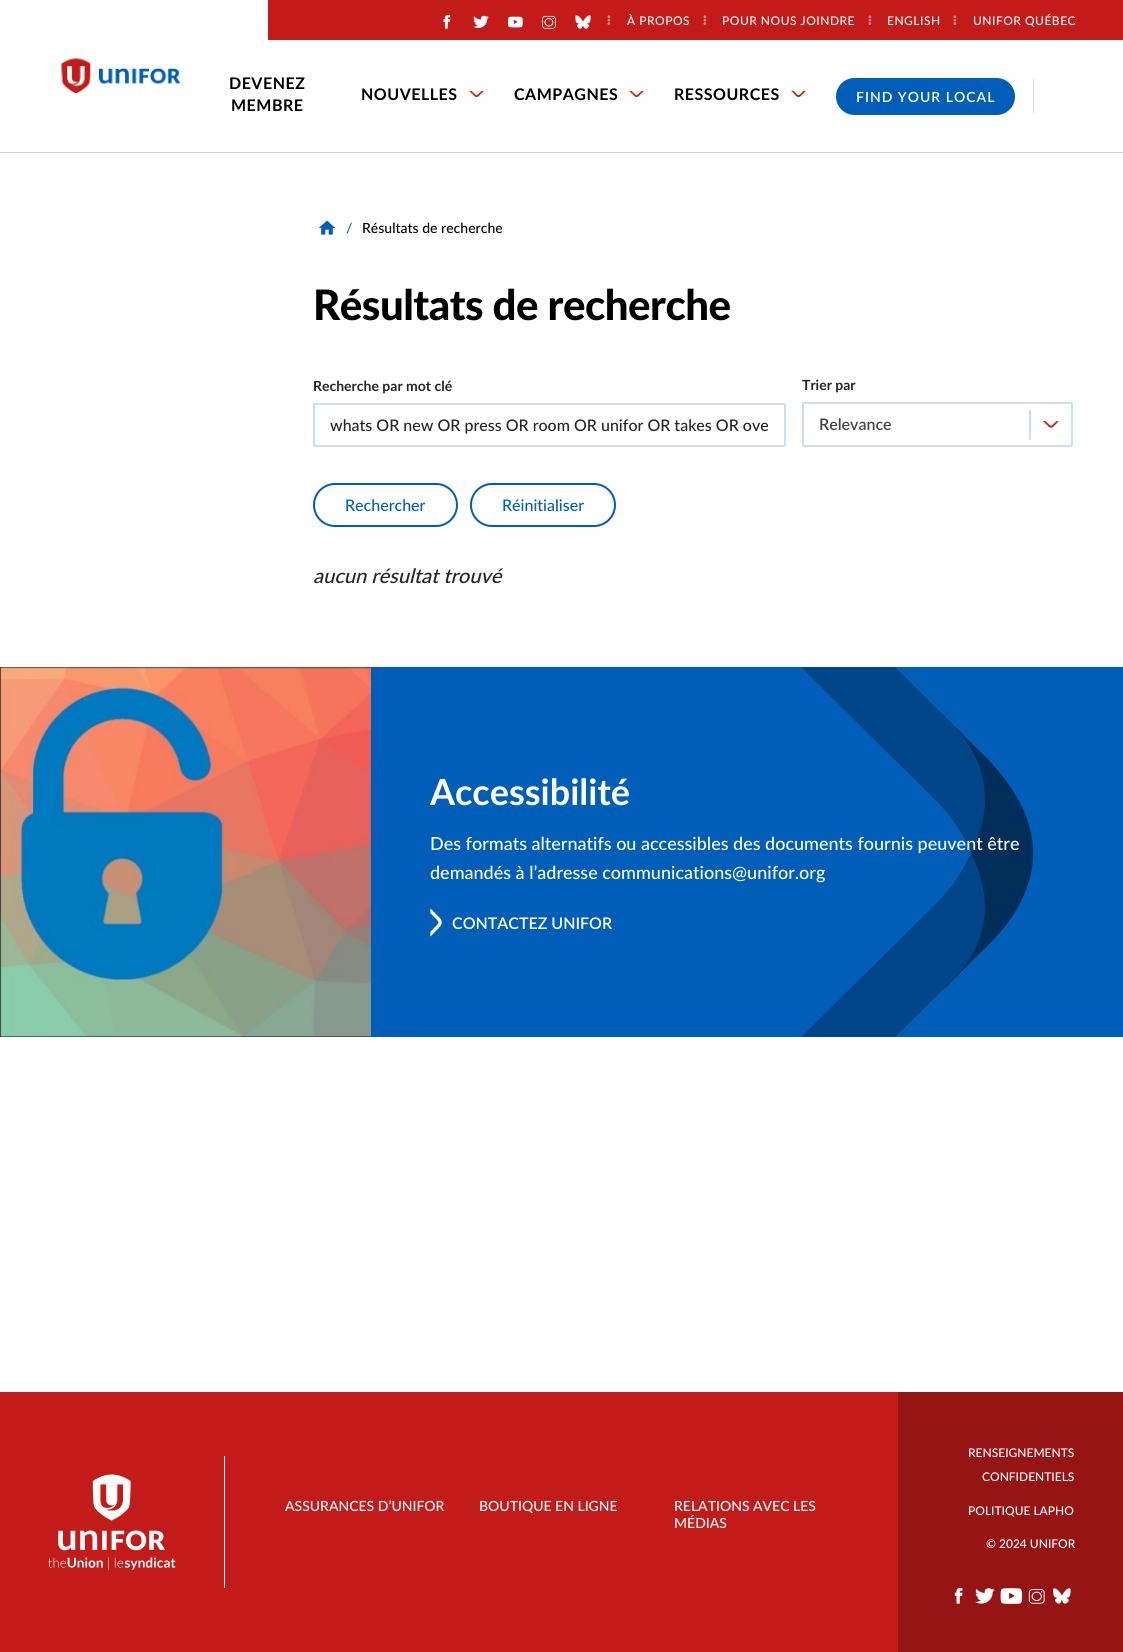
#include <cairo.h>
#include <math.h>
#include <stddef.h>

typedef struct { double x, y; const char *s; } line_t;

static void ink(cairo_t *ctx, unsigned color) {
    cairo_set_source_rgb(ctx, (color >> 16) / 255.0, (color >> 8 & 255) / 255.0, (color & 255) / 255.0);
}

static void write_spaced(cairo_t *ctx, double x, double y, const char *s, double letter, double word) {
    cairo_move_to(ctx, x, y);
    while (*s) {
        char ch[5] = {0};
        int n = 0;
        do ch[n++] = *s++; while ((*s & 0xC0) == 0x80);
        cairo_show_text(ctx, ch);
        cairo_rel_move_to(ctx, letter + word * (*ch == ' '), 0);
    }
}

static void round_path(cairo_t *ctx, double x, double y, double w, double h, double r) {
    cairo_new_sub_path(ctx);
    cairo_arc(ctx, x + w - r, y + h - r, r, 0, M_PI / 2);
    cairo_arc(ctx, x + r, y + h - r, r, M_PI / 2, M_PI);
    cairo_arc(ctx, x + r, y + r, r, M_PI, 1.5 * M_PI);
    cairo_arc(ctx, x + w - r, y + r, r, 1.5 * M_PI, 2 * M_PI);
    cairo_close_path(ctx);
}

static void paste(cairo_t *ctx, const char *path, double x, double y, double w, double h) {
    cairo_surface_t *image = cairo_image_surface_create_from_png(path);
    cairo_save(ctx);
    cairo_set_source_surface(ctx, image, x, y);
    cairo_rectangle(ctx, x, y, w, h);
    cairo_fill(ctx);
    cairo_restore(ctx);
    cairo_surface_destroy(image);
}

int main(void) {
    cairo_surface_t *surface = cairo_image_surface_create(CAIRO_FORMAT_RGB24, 1123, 1652);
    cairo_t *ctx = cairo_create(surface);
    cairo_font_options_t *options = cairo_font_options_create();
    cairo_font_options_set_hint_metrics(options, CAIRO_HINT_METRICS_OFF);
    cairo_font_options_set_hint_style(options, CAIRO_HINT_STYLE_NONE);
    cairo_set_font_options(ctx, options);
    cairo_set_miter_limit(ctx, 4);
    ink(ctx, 0xFFFFFF);
    cairo_paint(ctx);
    ink(ctx, 0xD0D2D9);
    cairo_rectangle(ctx, 0, 152, 1123, 1);
    cairo_fill(ctx);
    paste(ctx, "media/1.png", 61, 58, 120, 36);
    ink(ctx, 0xC31A1A);
    cairo_rectangle(ctx, 268, 0, 855, 40);
    cairo_fill(ctx);
    paste(ctx, "media/2.png", 443, 15, 8, 14);
    paste(ctx, "media/3.png", 473, 15, 16, 14);
    paste(ctx, "media/4.png", 507, 16, 16, 12);
    paste(ctx, "media/5.png", 542, 15, 14, 14);
    paste(ctx, "media/6.png", 575, 15, 16, 14);
    paste(ctx, "media/7.png", 607, 15, 4, 10);
    cairo_select_font_face(ctx, "Lato Medium", CAIRO_FONT_SLANT_NORMAL, CAIRO_FONT_WEIGHT_NORMAL);
    cairo_set_font_size(ctx, 12);
    ink(ctx, 0xFFFFFF);
    write_spaced(ctx, 627, 25, "À PROPOS", 0.5, 0);
    paste(ctx, "media/7.png", 703, 15, 4, 10);
    write_spaced(ctx, 722, 25, "POUR NOUS JOINDRE", 0.5, 0);
    paste(ctx, "media/7.png", 868, 15, 4, 10);
    write_spaced(ctx, 887, 25, "ENGLISH", 0.5, 0);
    paste(ctx, "media/7.png", 953, 15, 4, 10);
    write_spaced(ctx, 973, 25, "UNIFOR QUÉBEC", 0.5, 0);
    cairo_select_font_face(ctx, "Lato", CAIRO_FONT_SLANT_NORMAL, CAIRO_FONT_WEIGHT_BOLD);
    cairo_set_font_size(ctx, 16);
    ink(ctx, 0x000000);
    {
        static const line_t items[] = {
            {229, 89, "DEVENEZ"},
            {231, 111, "MEMBRE"},
            {361, 100, "NOUVELLES"},
        };
        for (size_t i = 0; i < sizeof items / sizeof *items; i++) {
            write_spaced(ctx, items[i].x, items[i].y, items[i].s, 0.5, 0);
        }
    }
    paste(ctx, "media/8.png", 469, 90, 15, 7);
    write_spaced(ctx, 514, 100, "CAMPAGNES", 0.5, 0);
    paste(ctx, "media/8.png", 629, 90, 15, 7);
    write_spaced(ctx, 674, 100, "RESSOURCES", 0.5, 0);
    paste(ctx, "media/8.png", 791, 90, 15, 7);
    ink(ctx, 0x005EB8);
    round_path(ctx, 836, 78, 179, 37, 18.5);
    cairo_fill(ctx);
    cairo_select_font_face(ctx, "Lato SemiBold", CAIRO_FONT_SLANT_NORMAL, CAIRO_FONT_WEIGHT_NORMAL);
    cairo_set_font_size(ctx, 14);
    ink(ctx, 0xFFFFFF);
    write_spaced(ctx, 856, 102, "FIND YOUR LOCAL", 1, 0);
    cairo_new_path(ctx);
    cairo_move_to(ctx, 1034, 113);
    cairo_line_to(ctx, 1033.5, 112);
    cairo_line_to(ctx, 1033.5, 80);
    cairo_line_to(ctx, 1034, 79);
    ink(ctx, 0xD0D2D9);
    cairo_set_line_width(ctx, 1);
    cairo_stroke(ctx);
    paste(ctx, "media/9.png", 318, 220, 18, 15);
    cairo_select_font_face(ctx, "Lato Medium", CAIRO_FONT_SLANT_NORMAL, CAIRO_FONT_WEIGHT_NORMAL);
    ink(ctx, 0x005EB8);
    cairo_move_to(ctx, 346, 233);
    cairo_show_text(ctx, "/");
    ink(ctx, 0x000000);
    cairo_move_to(ctx, 362, 233);
    cairo_show_text(ctx, "Résultats de recherche");
    cairo_select_font_face(ctx, "Lato Black", CAIRO_FONT_SLANT_NORMAL, CAIRO_FONT_WEIGHT_NORMAL);
    cairo_set_font_size(ctx, 42);
    write_spaced(ctx, 313, 320, "Résultats de recherche", -0.5, 0);
    cairo_select_font_face(ctx, "Lato", CAIRO_FONT_SLANT_NORMAL, CAIRO_FONT_WEIGHT_BOLD);
    cairo_set_font_size(ctx, 14);
    ink(ctx, 0x252525);
    cairo_move_to(ctx, 313, 391);
    cairo_show_text(ctx, "Recherche par mot clé");
    round_path(ctx, 314, 404, 471, 42, 1);
    ink(ctx, 0xCCDFF1);
    cairo_set_line_width(ctx, 2);
    cairo_stroke(ctx);
    cairo_select_font_face(ctx, "Lato Medium", CAIRO_FONT_SLANT_NORMAL, CAIRO_FONT_WEIGHT_NORMAL);
    cairo_set_font_size(ctx, 16);
    ink(ctx, 0x252525);
    cairo_move_to(ctx, 330, 431);
    cairo_show_text(ctx, "whats OR new OR press OR room OR unifor OR takes OR ove");
    cairo_select_font_face(ctx, "Lato", CAIRO_FONT_SLANT_NORMAL, CAIRO_FONT_WEIGHT_BOLD);
    cairo_set_font_size(ctx, 14);
    cairo_move_to(ctx, 802, 390);
    cairo_show_text(ctx, "Trier par");
    paste(ctx, "media/10.png", 1043, 421, 16, 7);
    round_path(ctx, 803, 403, 269, 43, 1);
    ink(ctx, 0xCCDFF1);
    cairo_stroke(ctx);
    cairo_select_font_face(ctx, "Lato SemiBold", CAIRO_FONT_SLANT_NORMAL, CAIRO_FONT_WEIGHT_NORMAL);
    cairo_set_font_size(ctx, 16);
    ink(ctx, 0x444444);
    cairo_move_to(ctx, 819, 430);
    cairo_show_text(ctx, "Relevance");
    ink(ctx, 0xCCDFF1);
    cairo_rectangle(ctx, 1029, 410, 2, 30);
    cairo_fill(ctx);
    round_path(ctx, 314, 484, 143, 42, 21);
    ink(ctx, 0x005EB8);
    cairo_stroke(ctx);
    cairo_select_font_face(ctx, "Lato Medium", CAIRO_FONT_SLANT_NORMAL, CAIRO_FONT_WEIGHT_NORMAL);
    cairo_move_to(ctx, 345, 511);
    cairo_show_text(ctx, "Rechercher");
    round_path(ctx, 471, 484, 144, 42, 21);
    cairo_stroke(ctx);
    cairo_move_to(ctx, 502, 511);
    cairo_show_text(ctx, "Réinitialiser");
    cairo_select_font_face(ctx, "Lato Medium", CAIRO_FONT_SLANT_ITALIC, CAIRO_FONT_WEIGHT_NORMAL);
    cairo_set_font_size(ctx, 20);
    ink(ctx, 0x252525);
    cairo_move_to(ctx, 313, 583);
    cairo_show_text(ctx, "aucun résultat trouvé");
    ink(ctx, 0x005EB8);
    cairo_rectangle(ctx, 0, 667, 1123, 370);
    cairo_fill(ctx);
    paste(ctx, "media/11.png", 802, 667, 232, 370);
    paste(ctx, "media/12.png", 0, 667, 371, 370);
    cairo_select_font_face(ctx, "Lato", CAIRO_FONT_SLANT_NORMAL, CAIRO_FONT_WEIGHT_BOLD);
    cairo_set_font_size(ctx, 36);
    ink(ctx, 0xFFFFFF);
    cairo_move_to(ctx, 430, 805);
    cairo_show_text(ctx, "Accessibilité");
    cairo_select_font_face(ctx, "Lato Medium", CAIRO_FONT_SLANT_NORMAL, CAIRO_FONT_WEIGHT_NORMAL);
    cairo_set_font_size(ctx, 18);
    cairo_move_to(ctx, 430, 850);
    cairo_show_text(ctx, "Des formats alternatifs ou accessibles des documents fournis peuvent être");
    cairo_move_to(ctx, 430, 879);
    cairo_show_text(ctx, "demandés à l’adresse communications@unifor.org");
    paste(ctx, "media/13.png", 430, 908, 12, 29);
    cairo_select_font_face(ctx, "Lato SemiBold", CAIRO_FONT_SLANT_NORMAL, CAIRO_FONT_WEIGHT_NORMAL);
    cairo_set_font_size(ctx, 16);
    cairo_move_to(ctx, 452, 929);
    cairo_show_text(ctx, "CONTACTEZ UNIFOR");
    ink(ctx, 0xC31A1A);
    cairo_rectangle(ctx, 0, 1392, 898, 260);
    cairo_fill(ctx);
    ink(ctx, 0xFFFFFF);
    cairo_rectangle(ctx, 224, 1456, 1, 132);
    cairo_fill(ctx);
    paste(ctx, "media/14.png", 48, 1474, 128, 96);
    cairo_select_font_face(ctx, "Lato Medium", CAIRO_FONT_SLANT_NORMAL, CAIRO_FONT_WEIGHT_NORMAL);
    cairo_set_font_size(ctx, 14);
    {
        static const line_t items[] = {
            {285, 1511, "ASSURANCES D’UNIFOR"},
            {479, 1511, "BOUTIQUE EN LIGNE"},
            {674, 1511, "RELATIONS AVEC LES"},
            {674, 1528, "MÉDIAS"},
        };
        for (size_t i = 0; i < sizeof items / sizeof *items; i++) {
            cairo_move_to(ctx, items[i].x, items[i].y);
            cairo_show_text(ctx, items[i].s);
        }
    }
    ink(ctx, 0x961414);
    cairo_rectangle(ctx, 898, 1392, 225, 260);
    cairo_fill(ctx);
    cairo_set_font_size(ctx, 12);
    ink(ctx, 0xFFFFFF);
    {
        static const line_t items[] = {
            {968, 1457, "RENSEIGNEMENTS"},
            {982, 1481, "CONFIDENTIELS"},
            {968, 1515, "POLITIQUE LAPHO"},
            {986, 1548, "© 2024 UNIFOR"},
        };
        for (size_t i = 0; i < sizeof items / sizeof *items; i++) {
            cairo_move_to(ctx, items[i].x, items[i].y);
            cairo_show_text(ctx, items[i].s);
        }
    }
    paste(ctx, "media/15.png", 954, 1588, 9, 16);
    paste(ctx, "media/16.png", 975, 1588, 20, 16);
    paste(ctx, "media/17.png", 1000, 1588, 23, 16);
    paste(ctx, "media/18.png", 1028, 1589, 17, 15);
    paste(ctx, "media/19.png", 1053, 1588, 18, 16);
    cairo_surface_write_to_png(surface, "image.png");
    cairo_font_options_destroy(options);
    cairo_destroy(ctx);
    cairo_surface_destroy(surface);
    return 0;
}
